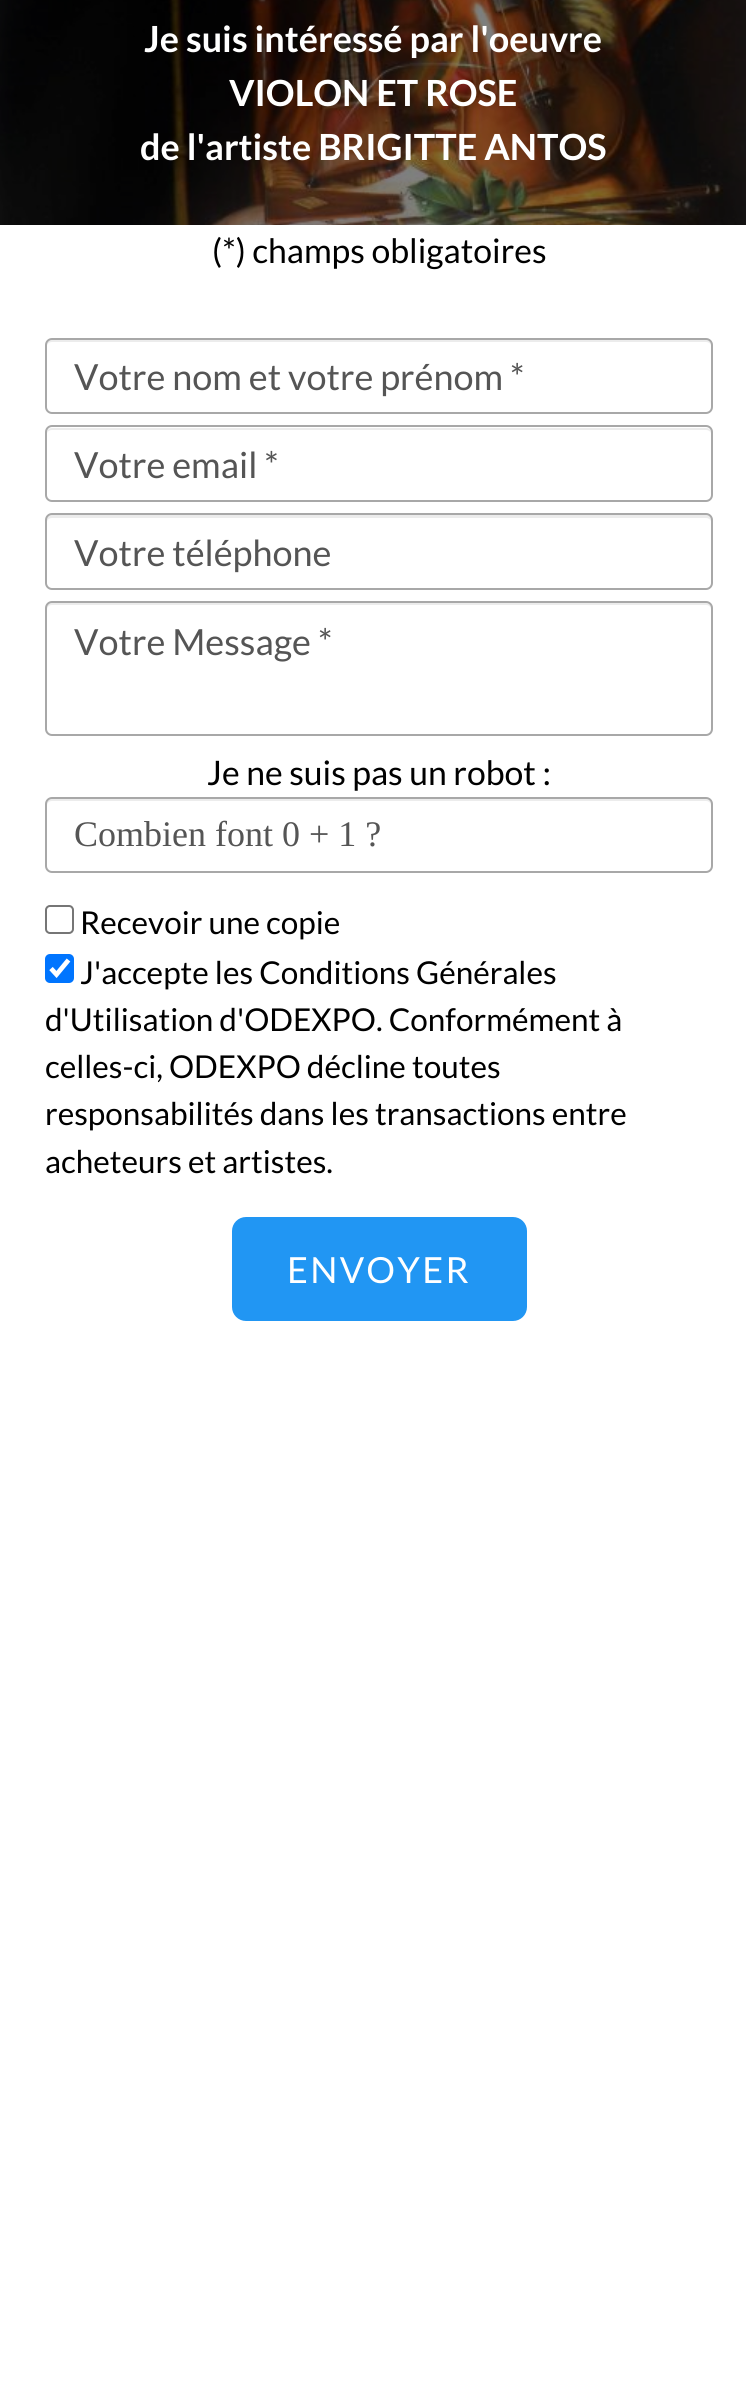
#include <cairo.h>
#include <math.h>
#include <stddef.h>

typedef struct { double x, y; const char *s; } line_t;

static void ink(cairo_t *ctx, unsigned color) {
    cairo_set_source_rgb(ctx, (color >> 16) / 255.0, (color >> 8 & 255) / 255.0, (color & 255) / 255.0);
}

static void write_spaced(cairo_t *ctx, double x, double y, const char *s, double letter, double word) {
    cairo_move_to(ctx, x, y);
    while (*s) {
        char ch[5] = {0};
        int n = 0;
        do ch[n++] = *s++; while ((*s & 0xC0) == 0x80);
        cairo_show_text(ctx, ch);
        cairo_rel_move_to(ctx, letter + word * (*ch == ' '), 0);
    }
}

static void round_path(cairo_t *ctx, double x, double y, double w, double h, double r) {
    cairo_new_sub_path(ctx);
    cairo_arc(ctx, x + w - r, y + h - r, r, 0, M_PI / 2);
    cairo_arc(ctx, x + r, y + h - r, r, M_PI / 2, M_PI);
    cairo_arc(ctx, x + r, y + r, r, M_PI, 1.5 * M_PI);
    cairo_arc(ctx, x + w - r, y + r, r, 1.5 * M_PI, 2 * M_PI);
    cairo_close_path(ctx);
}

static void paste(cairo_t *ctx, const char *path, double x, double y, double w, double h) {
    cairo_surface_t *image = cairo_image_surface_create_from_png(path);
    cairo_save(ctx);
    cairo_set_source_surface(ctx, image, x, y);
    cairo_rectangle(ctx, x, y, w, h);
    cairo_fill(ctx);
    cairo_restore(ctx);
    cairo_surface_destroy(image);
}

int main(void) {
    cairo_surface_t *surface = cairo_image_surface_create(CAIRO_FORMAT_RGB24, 746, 2407);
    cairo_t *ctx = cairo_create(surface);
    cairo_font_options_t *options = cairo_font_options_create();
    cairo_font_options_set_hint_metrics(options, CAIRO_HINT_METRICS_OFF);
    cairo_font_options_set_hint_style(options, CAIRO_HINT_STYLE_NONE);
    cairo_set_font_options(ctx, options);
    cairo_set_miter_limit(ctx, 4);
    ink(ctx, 0xFFFFFF);
    cairo_paint(ctx);
    paste(ctx, "media/1.png", 0, 0, 746, 225);
    cairo_select_font_face(ctx, "Lato", CAIRO_FONT_SLANT_NORMAL, CAIRO_FONT_WEIGHT_BOLD);
    cairo_set_font_size(ctx, 36);
    ink(ctx, 0xFFFFFF);
    {
        static const line_t items[] = {
            {144, 52, "Je suis intéressé par l'oeuvre"},
            {229, 106, "VIOLON ET ROSE"},
            {140, 160, "de l'artiste BRIGITTE ANTOS"},
        };
        for (size_t i = 0; i < sizeof items / sizeof *items; i++) {
            cairo_move_to(ctx, items[i].x, items[i].y);
            cairo_show_text(ctx, items[i].s);
        }
    }
    cairo_select_font_face(ctx, "Lato", CAIRO_FONT_SLANT_NORMAL, CAIRO_FONT_WEIGHT_NORMAL);
    cairo_set_font_size(ctx, 33.75);
    ink(ctx, 0x000000);
    cairo_move_to(ctx, 212, 263);
    cairo_show_text(ctx, "(*) champs obligatoires");
    ink(ctx, 0xECECEC);
    cairo_new_path(ctx);
    cairo_move_to(ctx, 52, 342);
    cairo_line_to(ctx, 706, 342);
    cairo_curve_to(ctx, 709, 342, 711, 344, 711, 346);
    cairo_line_to(ctx, 711, 345);
    cairo_curve_to(ctx, 711, 342, 709, 340, 706, 340);
    cairo_line_to(ctx, 52, 340);
    cairo_curve_to(ctx, 49, 340, 47, 342, 47, 345);
    cairo_line_to(ctx, 47, 346);
    cairo_curve_to(ctx, 47, 344, 49, 342, 52, 342);
    cairo_close_path(ctx);
    cairo_fill(ctx);
    round_path(ctx, 46, 339, 666, 74, 6);
    ink(ctx, 0xA8A8A8);
    cairo_stroke(ctx);
    cairo_set_font_size(ctx, 36);
    ink(ctx, 0x555555);
    cairo_move_to(ctx, 74, 390);
    cairo_show_text(ctx, "Votre nom et votre prénom *");
    ink(ctx, 0xECECEC);
    cairo_new_path(ctx);
    cairo_move_to(ctx, 52, 430);
    cairo_line_to(ctx, 706, 430);
    cairo_curve_to(ctx, 709, 430, 711, 432, 711, 434);
    cairo_line_to(ctx, 711, 433);
    cairo_curve_to(ctx, 711, 430, 709, 428, 706, 428);
    cairo_line_to(ctx, 52, 428);
    cairo_curve_to(ctx, 49, 428, 47, 430, 47, 433);
    cairo_line_to(ctx, 47, 434);
    cairo_curve_to(ctx, 47, 432, 49, 430, 52, 430);
    cairo_close_path(ctx);
    cairo_fill(ctx);
    round_path(ctx, 46, 426, 666, 75, 6);
    ink(ctx, 0xA8A8A8);
    cairo_stroke(ctx);
    ink(ctx, 0x555555);
    cairo_move_to(ctx, 74, 478);
    cairo_show_text(ctx, "Votre email *");
    ink(ctx, 0xECECEC);
    cairo_new_path(ctx);
    cairo_move_to(ctx, 52, 518);
    cairo_line_to(ctx, 706, 518);
    cairo_curve_to(ctx, 709, 518, 711, 520, 711, 522);
    cairo_line_to(ctx, 711, 520);
    cairo_curve_to(ctx, 711, 517, 709, 515, 706, 515);
    cairo_line_to(ctx, 52, 515);
    cairo_curve_to(ctx, 49, 515, 47, 517, 47, 520);
    cairo_line_to(ctx, 47, 522);
    cairo_curve_to(ctx, 47, 520, 49, 518, 52, 518);
    cairo_close_path(ctx);
    cairo_fill(ctx);
    round_path(ctx, 46, 514, 666, 75, 6);
    ink(ctx, 0xA8A8A8);
    cairo_stroke(ctx);
    ink(ctx, 0x555555);
    cairo_move_to(ctx, 74, 566);
    cairo_show_text(ctx, "Votre téléphone");
    ink(ctx, 0xECECEC);
    cairo_new_path(ctx);
    cairo_move_to(ctx, 52, 605);
    cairo_line_to(ctx, 706, 605);
    cairo_curve_to(ctx, 709, 605, 711, 607, 711, 610);
    cairo_line_to(ctx, 711, 608);
    cairo_curve_to(ctx, 711, 605, 709, 603, 706, 603);
    cairo_line_to(ctx, 52, 603);
    cairo_curve_to(ctx, 49, 603, 47, 605, 47, 608);
    cairo_line_to(ctx, 47, 610);
    cairo_curve_to(ctx, 47, 607, 49, 605, 52, 605);
    cairo_close_path(ctx);
    cairo_fill(ctx);
    round_path(ctx, 46, 602, 666, 133, 6);
    ink(ctx, 0xA8A8A8);
    cairo_stroke(ctx);
    ink(ctx, 0x555555);
    cairo_move_to(ctx, 74, 655);
    cairo_show_text(ctx, "Votre Message *");
    cairo_set_font_size(ctx, 33.75);
    ink(ctx, 0x000000);
    cairo_move_to(ctx, 207, 785);
    cairo_show_text(ctx, "Je ne suis pas un robot :");
    ink(ctx, 0xECECEC);
    cairo_new_path(ctx);
    cairo_move_to(ctx, 52, 801);
    cairo_line_to(ctx, 706, 801);
    cairo_curve_to(ctx, 709, 801, 711, 803, 711, 806);
    cairo_line_to(ctx, 711, 804);
    cairo_curve_to(ctx, 711, 801, 709, 799, 706, 799);
    cairo_line_to(ctx, 52, 799);
    cairo_curve_to(ctx, 49, 799, 47, 801, 47, 804);
    cairo_line_to(ctx, 47, 806);
    cairo_curve_to(ctx, 47, 803, 49, 801, 52, 801);
    cairo_close_path(ctx);
    cairo_fill(ctx);
    round_path(ctx, 46, 798, 666, 74, 6);
    ink(ctx, 0xA8A8A8);
    cairo_stroke(ctx);
    cairo_select_font_face(ctx, "Liberation Serif", CAIRO_FONT_SLANT_NORMAL, CAIRO_FONT_WEIGHT_NORMAL);
    cairo_set_font_size(ctx, 36);
    ink(ctx, 0x555555);
    cairo_move_to(ctx, 74, 846);
    cairo_show_text(ctx, "Combien font 0 + 1 ?");
    round_path(ctx, 46, 906, 27, 27, 4);
    ink(ctx, 0x767676);
    cairo_stroke(ctx);
    cairo_select_font_face(ctx, "Lato", CAIRO_FONT_SLANT_NORMAL, CAIRO_FONT_WEIGHT_NORMAL);
    cairo_set_font_size(ctx, 31.5);
    ink(ctx, 0x000000);
    cairo_move_to(ctx, 80, 934);
    cairo_show_text(ctx, "Recevoir une copie");
    ink(ctx, 0x0075FF);
    round_path(ctx, 45, 954, 29, 29, 5);
    cairo_fill(ctx);
    cairo_new_path(ctx);
    cairo_move_to(ctx, 51, 968.5);
    cairo_line_to(ctx, 56.5, 974.5);
    cairo_line_to(ctx, 68.5, 960);
    ink(ctx, 0xFFFFFF);
    cairo_set_line_width(ctx, 4.7);
    cairo_stroke(ctx);
    ink(ctx, 0x000000);
    {
        static const line_t items[] = {
            {80, 984, "J'accepte les Conditions Générales"},
            {45, 1031, "d'Utilisation d'ODEXPO. Conformément à"},
            {45, 1078, "celles-ci, ODEXPO décline toutes"},
            {45, 1125, "responsabilités dans les transactions entre"},
            {45, 1173, "acheteurs et artistes."},
        };
        for (size_t i = 0; i < sizeof items / sizeof *items; i++) {
            cairo_move_to(ctx, items[i].x, items[i].y);
            cairo_show_text(ctx, items[i].s);
        }
    }
    ink(ctx, 0x2196F3);
    round_path(ctx, 232, 1217, 295, 104, 14);
    cairo_fill(ctx);
    cairo_set_font_size(ctx, 36);
    ink(ctx, 0xFFFFFF);
    write_spaced(ctx, 287, 1283, "ENVOYER", 2.25, 0);
    cairo_surface_write_to_png(surface, "image.png");
    cairo_font_options_destroy(options);
    cairo_destroy(ctx);
    cairo_surface_destroy(surface);
    return 0;
}
